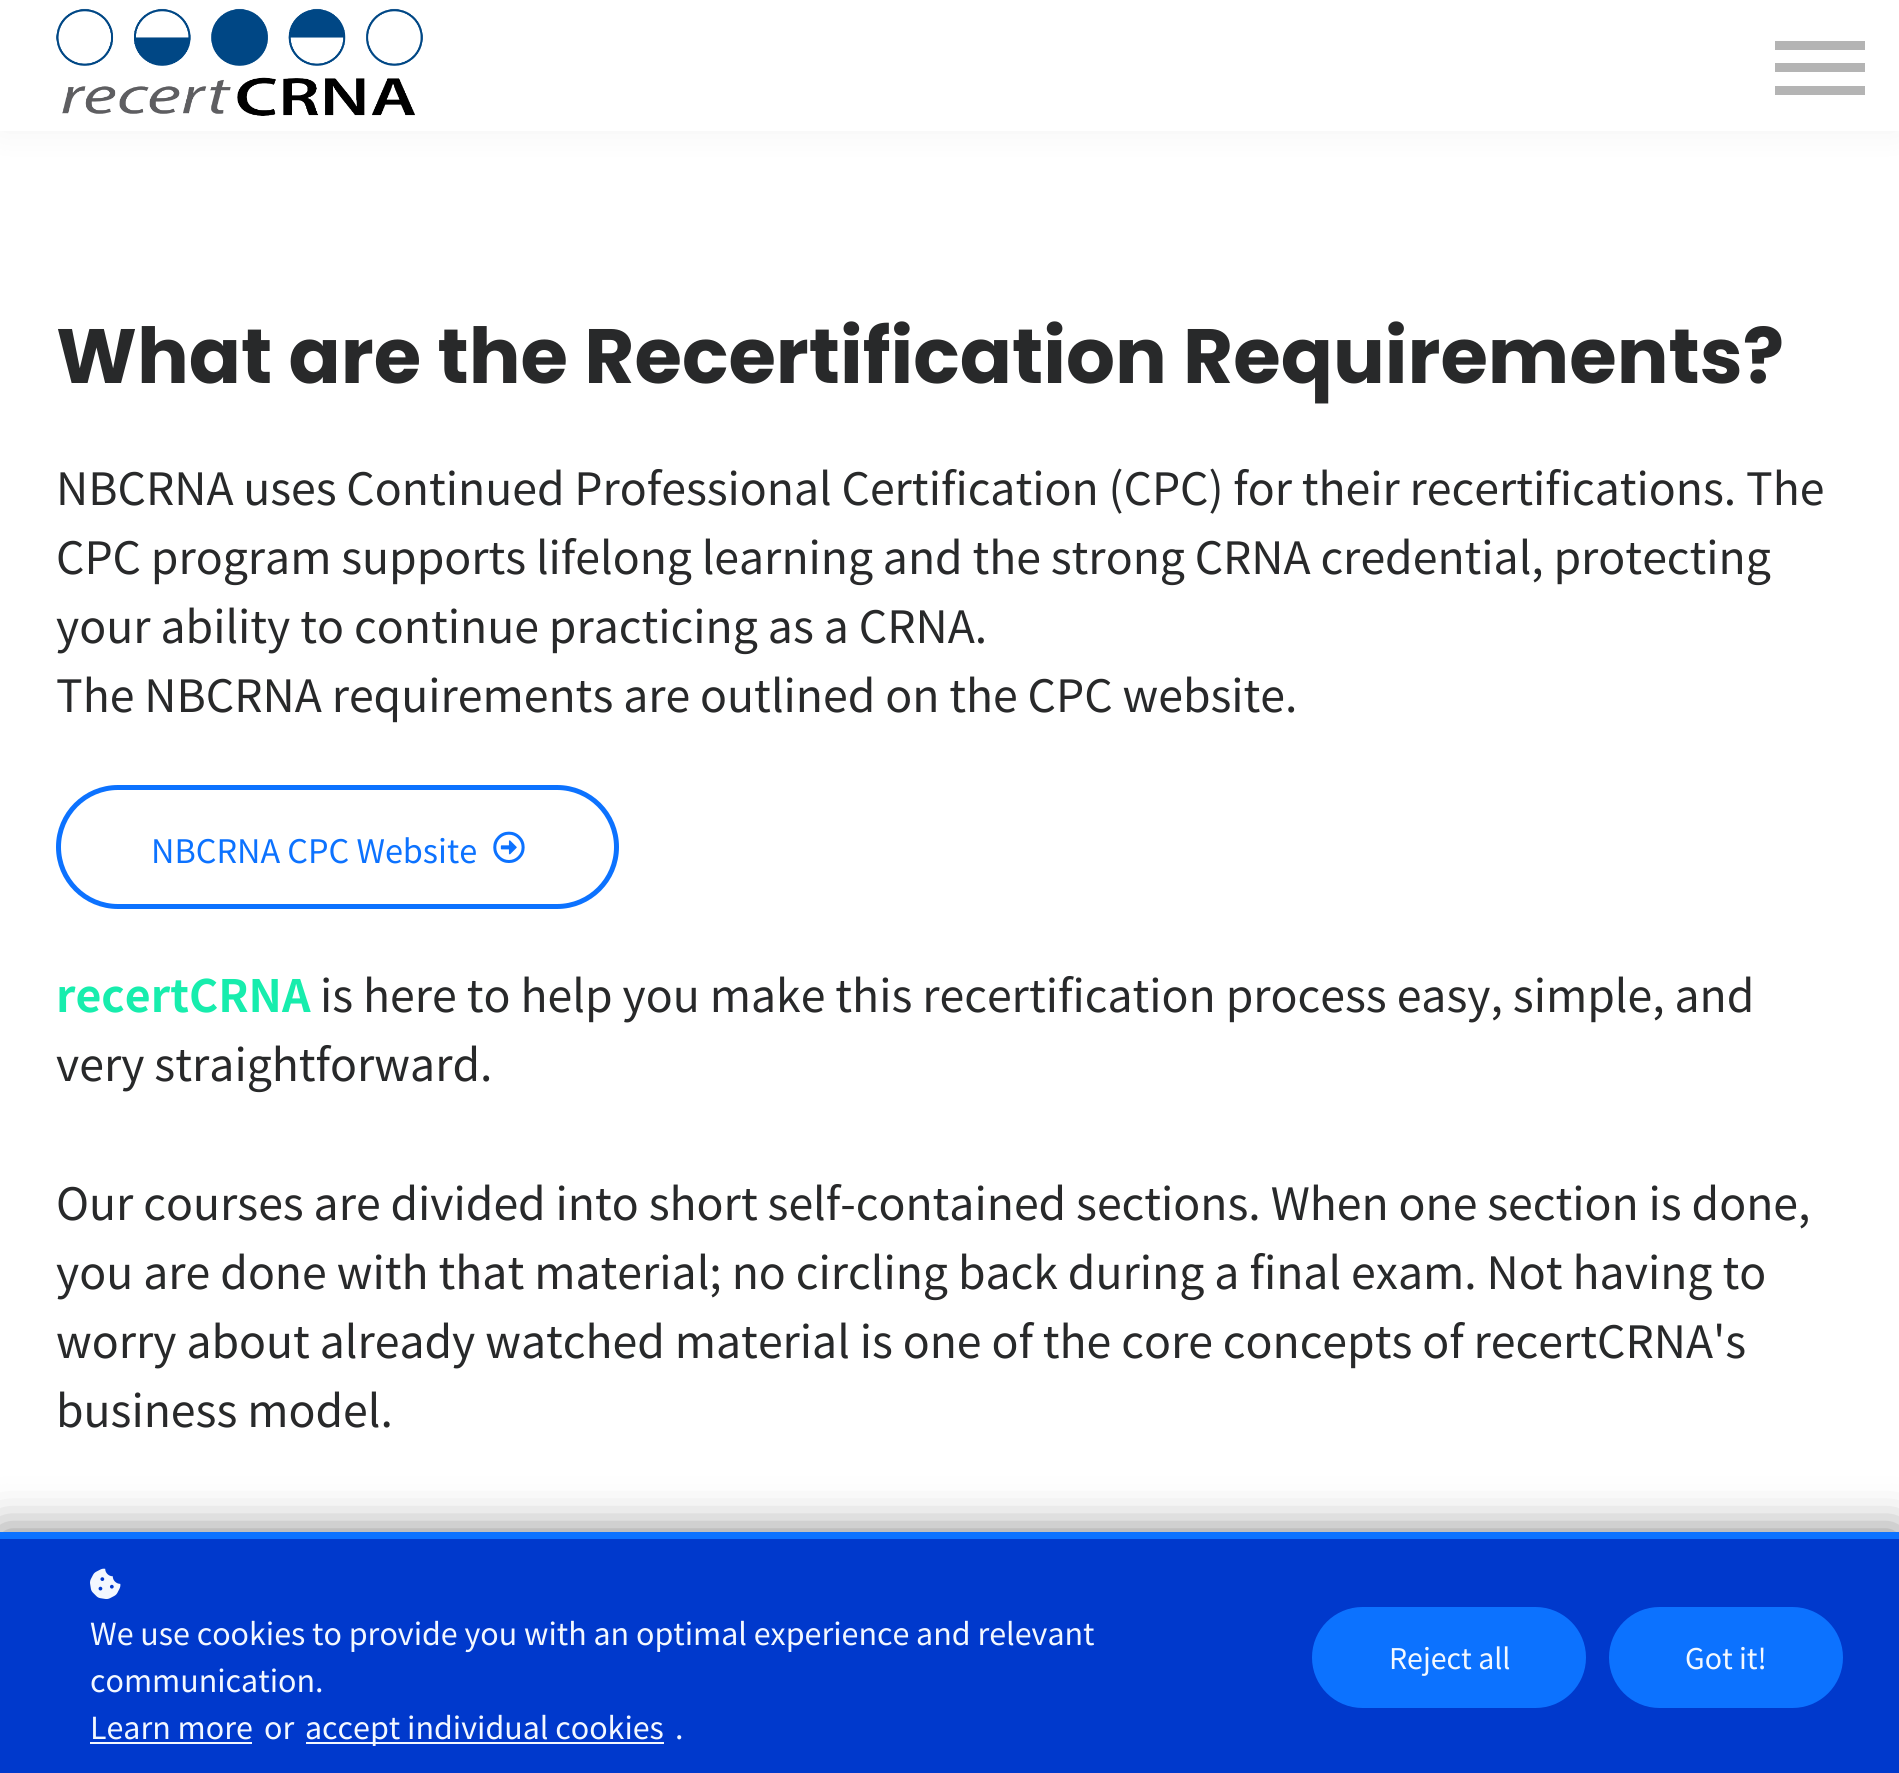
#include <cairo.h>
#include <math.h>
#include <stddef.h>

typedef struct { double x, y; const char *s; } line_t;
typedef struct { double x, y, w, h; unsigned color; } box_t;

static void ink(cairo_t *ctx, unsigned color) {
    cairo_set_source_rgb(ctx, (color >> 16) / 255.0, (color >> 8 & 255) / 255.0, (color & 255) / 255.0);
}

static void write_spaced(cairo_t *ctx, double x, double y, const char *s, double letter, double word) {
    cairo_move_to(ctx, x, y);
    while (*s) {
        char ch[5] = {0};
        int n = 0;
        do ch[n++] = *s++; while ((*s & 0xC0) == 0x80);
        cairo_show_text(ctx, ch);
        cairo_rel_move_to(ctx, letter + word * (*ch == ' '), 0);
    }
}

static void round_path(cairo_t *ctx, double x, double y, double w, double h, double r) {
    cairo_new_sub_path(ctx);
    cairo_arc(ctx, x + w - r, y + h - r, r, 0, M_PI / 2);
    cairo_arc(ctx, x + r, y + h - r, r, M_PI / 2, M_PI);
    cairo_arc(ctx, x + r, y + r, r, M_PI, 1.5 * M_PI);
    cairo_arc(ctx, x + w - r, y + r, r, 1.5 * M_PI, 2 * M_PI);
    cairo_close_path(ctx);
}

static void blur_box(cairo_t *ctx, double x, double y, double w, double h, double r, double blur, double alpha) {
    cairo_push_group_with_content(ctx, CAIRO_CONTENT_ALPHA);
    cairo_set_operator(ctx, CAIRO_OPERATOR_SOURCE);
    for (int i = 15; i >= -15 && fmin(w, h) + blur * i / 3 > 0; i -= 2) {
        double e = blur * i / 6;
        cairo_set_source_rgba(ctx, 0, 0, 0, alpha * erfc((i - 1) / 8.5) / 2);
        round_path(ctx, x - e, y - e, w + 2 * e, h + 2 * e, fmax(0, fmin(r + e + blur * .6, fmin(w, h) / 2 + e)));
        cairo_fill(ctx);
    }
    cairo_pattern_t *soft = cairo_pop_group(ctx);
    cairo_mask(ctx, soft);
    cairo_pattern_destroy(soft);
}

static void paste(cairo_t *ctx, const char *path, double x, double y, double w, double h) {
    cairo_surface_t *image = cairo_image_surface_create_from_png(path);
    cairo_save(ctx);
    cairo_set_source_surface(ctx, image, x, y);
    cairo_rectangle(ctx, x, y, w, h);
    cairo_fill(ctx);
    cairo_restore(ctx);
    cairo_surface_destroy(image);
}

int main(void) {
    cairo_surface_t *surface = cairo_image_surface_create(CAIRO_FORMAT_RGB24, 1899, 1773);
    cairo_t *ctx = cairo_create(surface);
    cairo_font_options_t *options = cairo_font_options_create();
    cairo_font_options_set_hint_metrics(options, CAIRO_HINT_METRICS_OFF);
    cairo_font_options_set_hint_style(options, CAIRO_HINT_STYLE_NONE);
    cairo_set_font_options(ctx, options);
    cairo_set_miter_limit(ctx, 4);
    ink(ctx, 0xFFFFFF);
    cairo_paint(ctx);
    ink(ctx, 0x000000);
    blur_box(ctx, 0, 0, 1899, 131, 0, 17, 0.05);
    ink(ctx, 0xFFFFFF);
    cairo_rectangle(ctx, 0, 0, 1899, 131);
    cairo_fill(ctx);
    paste(ctx, "media/1.png", 56, 8, 367, 108);
    {
        static const box_t items[] = {
            {1775, 86, 90, 9, 0xB4B4B4},
            {1775, 41, 90, 9, 0xB4B4B4},
            {1775, 63, 90, 9, 0xB4B4B4},
        };
        for (size_t i = 0; i < sizeof items / sizeof *items; i++) {
            ink(ctx, items[i].color);
            cairo_rectangle(ctx, items[i].x, items[i].y, items[i].w, items[i].h);
            cairo_fill(ctx);
        }
    }
    cairo_select_font_face(ctx, "Poppins", CAIRO_FONT_SLANT_NORMAL, CAIRO_FONT_WEIGHT_BOLD);
    cairo_set_font_size(ctx, 76.95);
    ink(ctx, 0x28292A);
    cairo_move_to(ctx, 56, 383);
    cairo_show_text(ctx, "What are the Recertification Requirements?");
    cairo_select_font_face(ctx, "Noto Sans JP", CAIRO_FONT_SLANT_NORMAL, CAIRO_FONT_WEIGHT_NORMAL);
    cairo_set_font_size(ctx, 44.55);
    write_spaced(ctx, 56, 505, "NBCRNA uses Continued Professional Certification (CPC) for their recertifications. The", 0, -0.25);
    write_spaced(ctx, 56, 574, "CPC program supports lifelong learning and the strong CRNA credential, protecting", 0, -0.25);
    cairo_move_to(ctx, 56, 643);
    cairo_show_text(ctx, "your ability to continue practicing as a CRNA.");
    write_spaced(ctx, 56, 712, "The NBCRNA requirements are outlined on the CPC website.", 0, -0.1);
    round_path(ctx, 58.5, 787.5, 558, 119, 59.5);
    ink(ctx, 0x0C72FF);
    cairo_set_line_width(ctx, 5);
    cairo_stroke(ctx);
    cairo_set_font_size(ctx, 32.4);
    cairo_move_to(ctx, 151, 863);
    cairo_show_text(ctx, "NBCRNA CPC Website");
    paste(ctx, "media/2.png", 493, 831, 32, 32);
    cairo_select_font_face(ctx, "Noto Sans JP", CAIRO_FONT_SLANT_NORMAL, CAIRO_FONT_WEIGHT_BOLD);
    cairo_set_font_size(ctx, 44.55);
    ink(ctx, 0x17EDAD);
    cairo_move_to(ctx, 56, 1012);
    cairo_show_text(ctx, "recertCRNA");
    cairo_select_font_face(ctx, "Noto Sans JP", CAIRO_FONT_SLANT_NORMAL, CAIRO_FONT_WEIGHT_NORMAL);
    ink(ctx, 0x28292A);
    cairo_move_to(ctx, 320, 1012);
    cairo_show_text(ctx, "is here to help you make this recertification process easy, simple, and");
    cairo_move_to(ctx, 56, 1081);
    cairo_show_text(ctx, "very straightforward.");
    write_spaced(ctx, 56, 1220, "Our courses are divided into short self-contained sections. When one section is done,", 0, -0.1);
    cairo_move_to(ctx, 56, 1289);
    cairo_show_text(ctx, "you are done with that material; no circling back during a final exam. Not having to");
    write_spaced(ctx, 56, 1358, "worry about already watched material is one of the core concepts of recertCRNA's", 0, -0.1);
    cairo_move_to(ctx, 56, 1427);
    cairo_show_text(ctx, "business model.");
    ink(ctx, 0x000000);
    blur_box(ctx, 0, 1532, 1899, 241, 0, 22.5, 0.5);
    ink(ctx, 0x0039CC);
    cairo_rectangle(ctx, 0, 1539, 1899, 234);
    cairo_fill(ctx);
    ink(ctx, 0x0C72FF);
    cairo_rectangle(ctx, 0, 1532, 1899, 7);
    cairo_fill(ctx);
    paste(ctx, "media/3.png", 90, 1568, 31, 31);
    cairo_set_font_size(ctx, 30.4);
    ink(ctx, 0xF3F8FF);
    {
        static const line_t items[] = {
            {90, 1645, "We use cookies to provide you with an optimal experience and relevant"},
            {90, 1692, "communication."},
            {90, 1739, "Learn more"},
        };
        for (size_t i = 0; i < sizeof items / sizeof *items; i++) {
            cairo_move_to(ctx, items[i].x, items[i].y);
            cairo_show_text(ctx, items[i].s);
        }
    }
    cairo_rectangle(ctx, 90, 1742, 162, 2);
    cairo_fill(ctx);
    cairo_move_to(ctx, 264, 1739);
    cairo_show_text(ctx, "or");
    cairo_rectangle(ctx, 306, 1742, 358, 2);
    cairo_fill(ctx);
    cairo_move_to(ctx, 305, 1739);
    cairo_show_text(ctx, "accept individual cookies");
    cairo_move_to(ctx, 675, 1739);
    cairo_show_text(ctx, ".");
    ink(ctx, 0x0C72FF);
    round_path(ctx, 1312, 1607, 274, 101, 50.5);
    cairo_fill(ctx);
    cairo_set_font_size(ctx, 28.5);
    ink(ctx, 0xF3F8FF);
    cairo_move_to(ctx, 1389, 1669);
    cairo_show_text(ctx, "Reject all");
    ink(ctx, 0x0C72FF);
    round_path(ctx, 1609, 1607, 234, 101, 50.5);
    cairo_fill(ctx);
    ink(ctx, 0xF3F8FF);
    cairo_move_to(ctx, 1685, 1669);
    cairo_show_text(ctx, "Got it!");
    cairo_surface_write_to_png(surface, "image.png");
    cairo_font_options_destroy(options);
    cairo_destroy(ctx);
    cairo_surface_destroy(surface);
    return 0;
}
